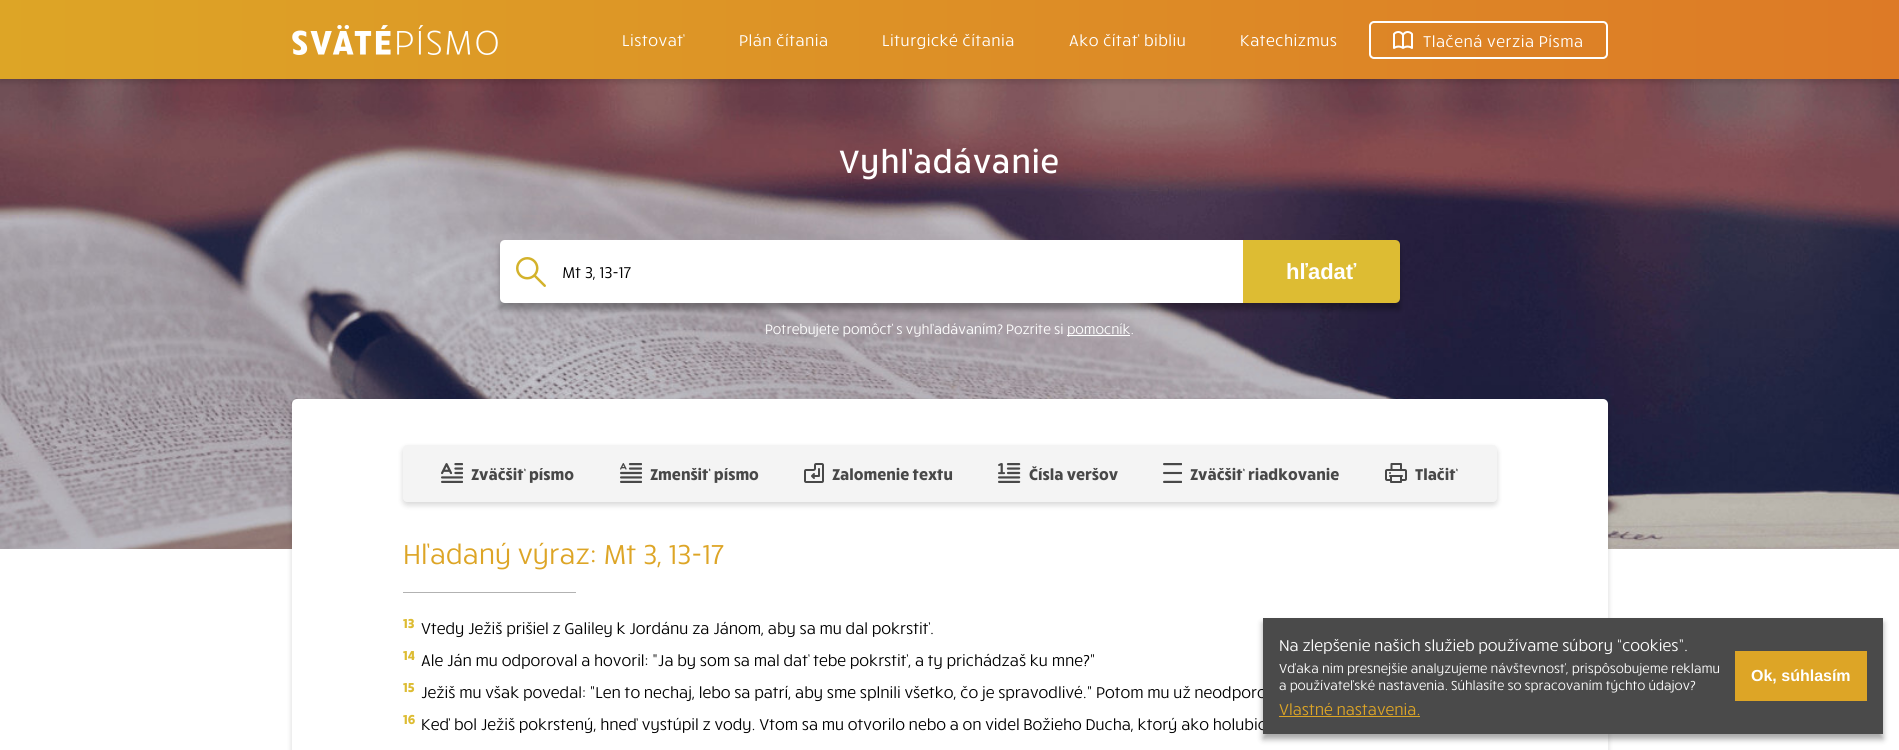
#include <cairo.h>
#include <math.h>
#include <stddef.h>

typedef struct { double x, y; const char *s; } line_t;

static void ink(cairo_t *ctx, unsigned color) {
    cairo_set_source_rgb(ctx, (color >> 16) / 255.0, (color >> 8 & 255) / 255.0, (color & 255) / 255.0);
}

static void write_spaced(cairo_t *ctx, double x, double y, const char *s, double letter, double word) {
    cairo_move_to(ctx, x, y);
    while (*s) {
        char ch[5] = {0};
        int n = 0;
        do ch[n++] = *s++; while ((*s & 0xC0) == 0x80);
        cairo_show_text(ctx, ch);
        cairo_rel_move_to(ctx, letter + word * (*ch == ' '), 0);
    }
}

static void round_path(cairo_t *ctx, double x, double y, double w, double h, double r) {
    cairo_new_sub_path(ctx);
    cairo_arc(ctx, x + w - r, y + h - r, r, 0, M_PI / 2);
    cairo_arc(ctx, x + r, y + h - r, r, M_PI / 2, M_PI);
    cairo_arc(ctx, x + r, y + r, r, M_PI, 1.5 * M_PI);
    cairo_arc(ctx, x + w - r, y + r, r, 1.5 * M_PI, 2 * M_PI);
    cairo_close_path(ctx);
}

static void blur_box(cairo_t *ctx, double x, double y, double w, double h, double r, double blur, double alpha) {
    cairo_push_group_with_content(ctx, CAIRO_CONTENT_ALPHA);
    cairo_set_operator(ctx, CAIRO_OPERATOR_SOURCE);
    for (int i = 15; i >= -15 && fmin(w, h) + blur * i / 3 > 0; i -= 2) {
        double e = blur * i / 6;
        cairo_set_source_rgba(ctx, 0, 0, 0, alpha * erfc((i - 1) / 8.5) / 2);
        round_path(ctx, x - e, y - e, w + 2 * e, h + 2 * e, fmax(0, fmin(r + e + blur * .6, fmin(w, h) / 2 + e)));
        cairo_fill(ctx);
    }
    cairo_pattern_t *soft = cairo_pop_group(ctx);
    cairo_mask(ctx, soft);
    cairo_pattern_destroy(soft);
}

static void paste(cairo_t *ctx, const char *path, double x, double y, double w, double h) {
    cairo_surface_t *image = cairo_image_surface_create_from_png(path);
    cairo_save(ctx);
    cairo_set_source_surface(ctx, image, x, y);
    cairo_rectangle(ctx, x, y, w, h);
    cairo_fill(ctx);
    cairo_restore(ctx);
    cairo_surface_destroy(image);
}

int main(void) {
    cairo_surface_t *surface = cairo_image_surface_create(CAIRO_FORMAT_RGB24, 1899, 750);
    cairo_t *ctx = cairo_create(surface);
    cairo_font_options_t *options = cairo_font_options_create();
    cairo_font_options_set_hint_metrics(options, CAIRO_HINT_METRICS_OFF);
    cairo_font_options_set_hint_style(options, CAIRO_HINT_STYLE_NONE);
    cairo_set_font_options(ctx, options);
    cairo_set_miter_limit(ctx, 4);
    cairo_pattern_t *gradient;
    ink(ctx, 0xFFFFFF);
    cairo_paint(ctx);
    paste(ctx, "media/3.png", 0, 79, 1899, 470);
    ink(ctx, 0x000000);
    blur_box(ctx, 0, 3, 1899, 79, 0, 3, 0.16);
    gradient = cairo_pattern_create_linear(0, 40, 1899, 39);
    cairo_pattern_add_color_stop_rgba(gradient, 0, 0.867, 0.647, 0.149, 1);
    cairo_pattern_add_color_stop_rgba(gradient, 1, 0.867, 0.478, 0.149, 1);
    cairo_set_source(ctx, gradient);
    cairo_pattern_destroy(gradient);
    cairo_rectangle(ctx, 0, 0, 1899, 79);
    cairo_fill(ctx);
    paste(ctx, "media/1.png", 292, 25, 206, 30);
    cairo_select_font_face(ctx, "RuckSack", CAIRO_FONT_SLANT_NORMAL, CAIRO_FONT_WEIGHT_NORMAL);
    cairo_set_font_size(ctx, 16);
    ink(ctx, 0xFFFFFF);
    {
        static const line_t items[] = {
            {622, 46, "Listovať"},
            {739, 46, "Plán čítania"},
            {882, 46, "Liturgické čítania"},
            {1069, 46, "Ako čítať bibliu"},
            {1240, 46, "Katechizmus"},
        };
        for (size_t i = 0; i < sizeof items / sizeof *items; i++) {
            write_spaced(ctx, items[i].x, items[i].y, items[i].s, 0.5, 0);
        }
    }
    round_path(ctx, 1370, 22, 237, 36, 4);
    cairo_stroke(ctx);
    paste(ctx, "media/2.png", 1393, 31, 20, 18);
    write_spaced(ctx, 1423, 47, "Tlačená verzia Písma", 0.5, 0);
    cairo_select_font_face(ctx, "RuckSack Medium", CAIRO_FONT_SLANT_NORMAL, CAIRO_FONT_WEIGHT_NORMAL);
    cairo_set_font_size(ctx, 33);
    write_spaced(ctx, 839, 173, "Vyhľadávanie", 0.7, 0);
    ink(ctx, 0x000000);
    blur_box(ctx, 500, 246, 900, 63, 0, 3, 0.31);
    ink(ctx, 0xFFFFFF);
    cairo_new_path(ctx);
    cairo_move_to(ctx, 505, 240);
    cairo_line_to(ctx, 546, 240);
    cairo_line_to(ctx, 546, 303);
    cairo_line_to(ctx, 505, 303);
    cairo_curve_to(ctx, 502, 303, 500, 301, 500, 298);
    cairo_line_to(ctx, 500, 245);
    cairo_curve_to(ctx, 500, 242, 502, 240, 505, 240);
    cairo_close_path(ctx);
    cairo_fill(ctx);
    paste(ctx, "media/4.png", 516, 257, 30, 30);
    cairo_rectangle(ctx, 546, 240, 697, 63);
    cairo_fill(ctx);
    cairo_select_font_face(ctx, "RuckSack", CAIRO_FONT_SLANT_NORMAL, CAIRO_FONT_WEIGHT_NORMAL);
    cairo_set_font_size(ctx, 16);
    ink(ctx, 0x000000);
    cairo_move_to(ctx, 562, 278);
    cairo_show_text(ctx, "Mt 3, 13-17");
    ink(ctx, 0xDDBC33);
    cairo_new_path(ctx);
    cairo_move_to(ctx, 1243, 240);
    cairo_line_to(ctx, 1395, 240);
    cairo_curve_to(ctx, 1398, 240, 1400, 242, 1400, 245);
    cairo_line_to(ctx, 1400, 298);
    cairo_curve_to(ctx, 1400, 301, 1398, 303, 1395, 303);
    cairo_line_to(ctx, 1243, 303);
    cairo_close_path(ctx);
    cairo_fill(ctx);
    cairo_select_font_face(ctx, "Liberation Sans", CAIRO_FONT_SLANT_NORMAL, CAIRO_FONT_WEIGHT_BOLD);
    cairo_set_font_size(ctx, 22);
    ink(ctx, 0xFFFFFF);
    cairo_move_to(ctx, 1286, 279);
    cairo_show_text(ctx, "hľadať");
    cairo_select_font_face(ctx, "RuckSack", CAIRO_FONT_SLANT_NORMAL, CAIRO_FONT_WEIGHT_NORMAL);
    cairo_set_font_size(ctx, 14);
    cairo_move_to(ctx, 765, 334);
    cairo_show_text(ctx, "Potrebujete pomôcť s vyhľadávaním? Pozrite si");
    cairo_rectangle(ctx, 1067, 335, 63, 1);
    cairo_fill(ctx);
    cairo_move_to(ctx, 1067, 334);
    cairo_show_text(ctx, "pomocník.");
    ink(ctx, 0x000000);
    blur_box(ctx, 292, 402, 1316, 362, 5, 3, 0.16);
    ink(ctx, 0xFFFFFF);
    round_path(ctx, 292, 399, 1316, 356, 5);
    cairo_fill(ctx);
    ink(ctx, 0x000000);
    blur_box(ctx, 403, 448, 1094, 57, 4, 3, 0.16);
    ink(ctx, 0xF4F4F4);
    round_path(ctx, 403, 445, 1094, 57, 4);
    cairo_fill(ctx);
    paste(ctx, "media/5.png", 441, 463, 22, 20);
    cairo_select_font_face(ctx, "RuckSack", CAIRO_FONT_SLANT_NORMAL, CAIRO_FONT_WEIGHT_BOLD);
    cairo_set_font_size(ctx, 16);
    ink(ctx, 0x484848);
    cairo_move_to(ctx, 471, 480);
    cairo_show_text(ctx, "Zväčšiť písmo");
    paste(ctx, "media/6.png", 620, 463, 22, 20);
    cairo_move_to(ctx, 650, 480);
    cairo_show_text(ctx, "Zmenšiť písmo");
    paste(ctx, "media/7.png", 804, 463, 20, 20);
    cairo_move_to(ctx, 832, 480);
    cairo_show_text(ctx, "Zalomenie textu");
    paste(ctx, "media/8.png", 998, 463, 23, 20);
    cairo_move_to(ctx, 1029, 480);
    cairo_show_text(ctx, "Čísla veršov");
    paste(ctx, "media/9.png", 1163, 463, 19, 20);
    cairo_move_to(ctx, 1190, 480);
    cairo_show_text(ctx, "Zväčšiť riadkovanie");
    paste(ctx, "media/10.png", 1385, 463, 22, 20);
    cairo_move_to(ctx, 1415, 480);
    cairo_show_text(ctx, "Tlačiť");
    cairo_select_font_face(ctx, "RuckSack", CAIRO_FONT_SLANT_NORMAL, CAIRO_FONT_WEIGHT_NORMAL);
    cairo_set_font_size(ctx, 28);
    ink(ctx, 0xDDA526);
    cairo_move_to(ctx, 403, 564);
    cairo_show_text(ctx, "Hľadaný výraz: Mt 3, 13-17");
    ink(ctx, 0xB2B2B2);
    cairo_rectangle(ctx, 403, 592, 173, 1);
    cairo_fill(ctx);
    cairo_select_font_face(ctx, "RuckSack", CAIRO_FONT_SLANT_NORMAL, CAIRO_FONT_WEIGHT_BOLD);
    cairo_set_font_size(ctx, 13.3);
    ink(ctx, 0xDDBC33);
    cairo_move_to(ctx, 403, 628);
    cairo_show_text(ctx, "13");
    cairo_select_font_face(ctx, "RuckSack", CAIRO_FONT_SLANT_NORMAL, CAIRO_FONT_WEIGHT_NORMAL);
    cairo_set_font_size(ctx, 16);
    ink(ctx, 0x000000);
    cairo_move_to(ctx, 421, 634);
    cairo_show_text(ctx, "Vtedy Ježiš prišiel z Galiley k Jordánu za Jánom, aby sa mu dal pokrstiť.");
    cairo_select_font_face(ctx, "RuckSack", CAIRO_FONT_SLANT_NORMAL, CAIRO_FONT_WEIGHT_BOLD);
    cairo_set_font_size(ctx, 13.3);
    ink(ctx, 0xDDBC33);
    cairo_move_to(ctx, 403, 660);
    cairo_show_text(ctx, "14");
    cairo_select_font_face(ctx, "RuckSack", CAIRO_FONT_SLANT_NORMAL, CAIRO_FONT_WEIGHT_NORMAL);
    cairo_set_font_size(ctx, 16);
    ink(ctx, 0x000000);
    cairo_move_to(ctx, 421, 666);
    cairo_show_text(ctx, "Ale Ján mu odporoval a hovoril: \"Ja by som sa mal dať tebe pokrstiť, a ty prichádzaš ku mne?\"");
    cairo_select_font_face(ctx, "RuckSack", CAIRO_FONT_SLANT_NORMAL, CAIRO_FONT_WEIGHT_BOLD);
    cairo_set_font_size(ctx, 13.3);
    ink(ctx, 0xDDBC33);
    cairo_move_to(ctx, 403, 692);
    cairo_show_text(ctx, "15");
    cairo_select_font_face(ctx, "RuckSack", CAIRO_FONT_SLANT_NORMAL, CAIRO_FONT_WEIGHT_NORMAL);
    cairo_set_font_size(ctx, 16);
    ink(ctx, 0x000000);
    cairo_move_to(ctx, 421, 698);
    cairo_show_text(ctx, "Ježiš mu však povedal: \"Len to nechaj, lebo sa patrí, aby sme splnili všetko, čo je spravodlivé.\" Potom mu už neodporo");
    cairo_select_font_face(ctx, "RuckSack", CAIRO_FONT_SLANT_NORMAL, CAIRO_FONT_WEIGHT_BOLD);
    cairo_set_font_size(ctx, 13.3);
    ink(ctx, 0xDDBC33);
    cairo_move_to(ctx, 403, 724);
    cairo_show_text(ctx, "16");
    cairo_select_font_face(ctx, "RuckSack", CAIRO_FONT_SLANT_NORMAL, CAIRO_FONT_WEIGHT_NORMAL);
    cairo_set_font_size(ctx, 16);
    ink(ctx, 0x000000);
    cairo_move_to(ctx, 421, 730);
    cairo_show_text(ctx, "Keď bol Ježiš pokrstený, hneď vystúpil z vody. Vtom sa mu otvorilo nebo a on videl Božieho Ducha, ktorý ako holubic");
    ink(ctx, 0x000000);
    blur_box(ctx, 1263, 623, 620, 116, 0, 3, 0.35);
    ink(ctx, 0x4A4A4A);
    cairo_rectangle(ctx, 1263, 618, 620, 116);
    cairo_fill(ctx);
    ink(ctx, 0xFFFFFF);
    cairo_move_to(ctx, 1279, 651);
    cairo_show_text(ctx, "Na zlepšenie našich služieb používame súbory “cookies”.");
    cairo_set_font_size(ctx, 13.3);
    cairo_move_to(ctx, 1279, 673);
    cairo_show_text(ctx, "Vďaka nim presnejšie analyzujeme návštevnosť, prispôsobujeme reklamu");
    cairo_move_to(ctx, 1279, 690);
    cairo_show_text(ctx, "a používateľské nastavenia. Súhlasíte so spracovaním týchto údajov?");
    cairo_set_font_size(ctx, 16);
    ink(ctx, 0xDDA526);
    cairo_move_to(ctx, 1279, 715);
    cairo_show_text(ctx, "Vlastné nastavenia.");
    cairo_rectangle(ctx, 1279, 716, 141, 1);
    cairo_fill(ctx);
    cairo_rectangle(ctx, 1735, 651, 132, 50);
    cairo_fill(ctx);
    cairo_select_font_face(ctx, "Liberation Sans", CAIRO_FONT_SLANT_NORMAL, CAIRO_FONT_WEIGHT_BOLD);
    ink(ctx, 0xFFFFFF);
    cairo_move_to(ctx, 1751, 681);
    cairo_show_text(ctx, "Ok, súhlasím");
    cairo_surface_write_to_png(surface, "image.png");
    cairo_font_options_destroy(options);
    cairo_destroy(ctx);
    cairo_surface_destroy(surface);
    return 0;
}
